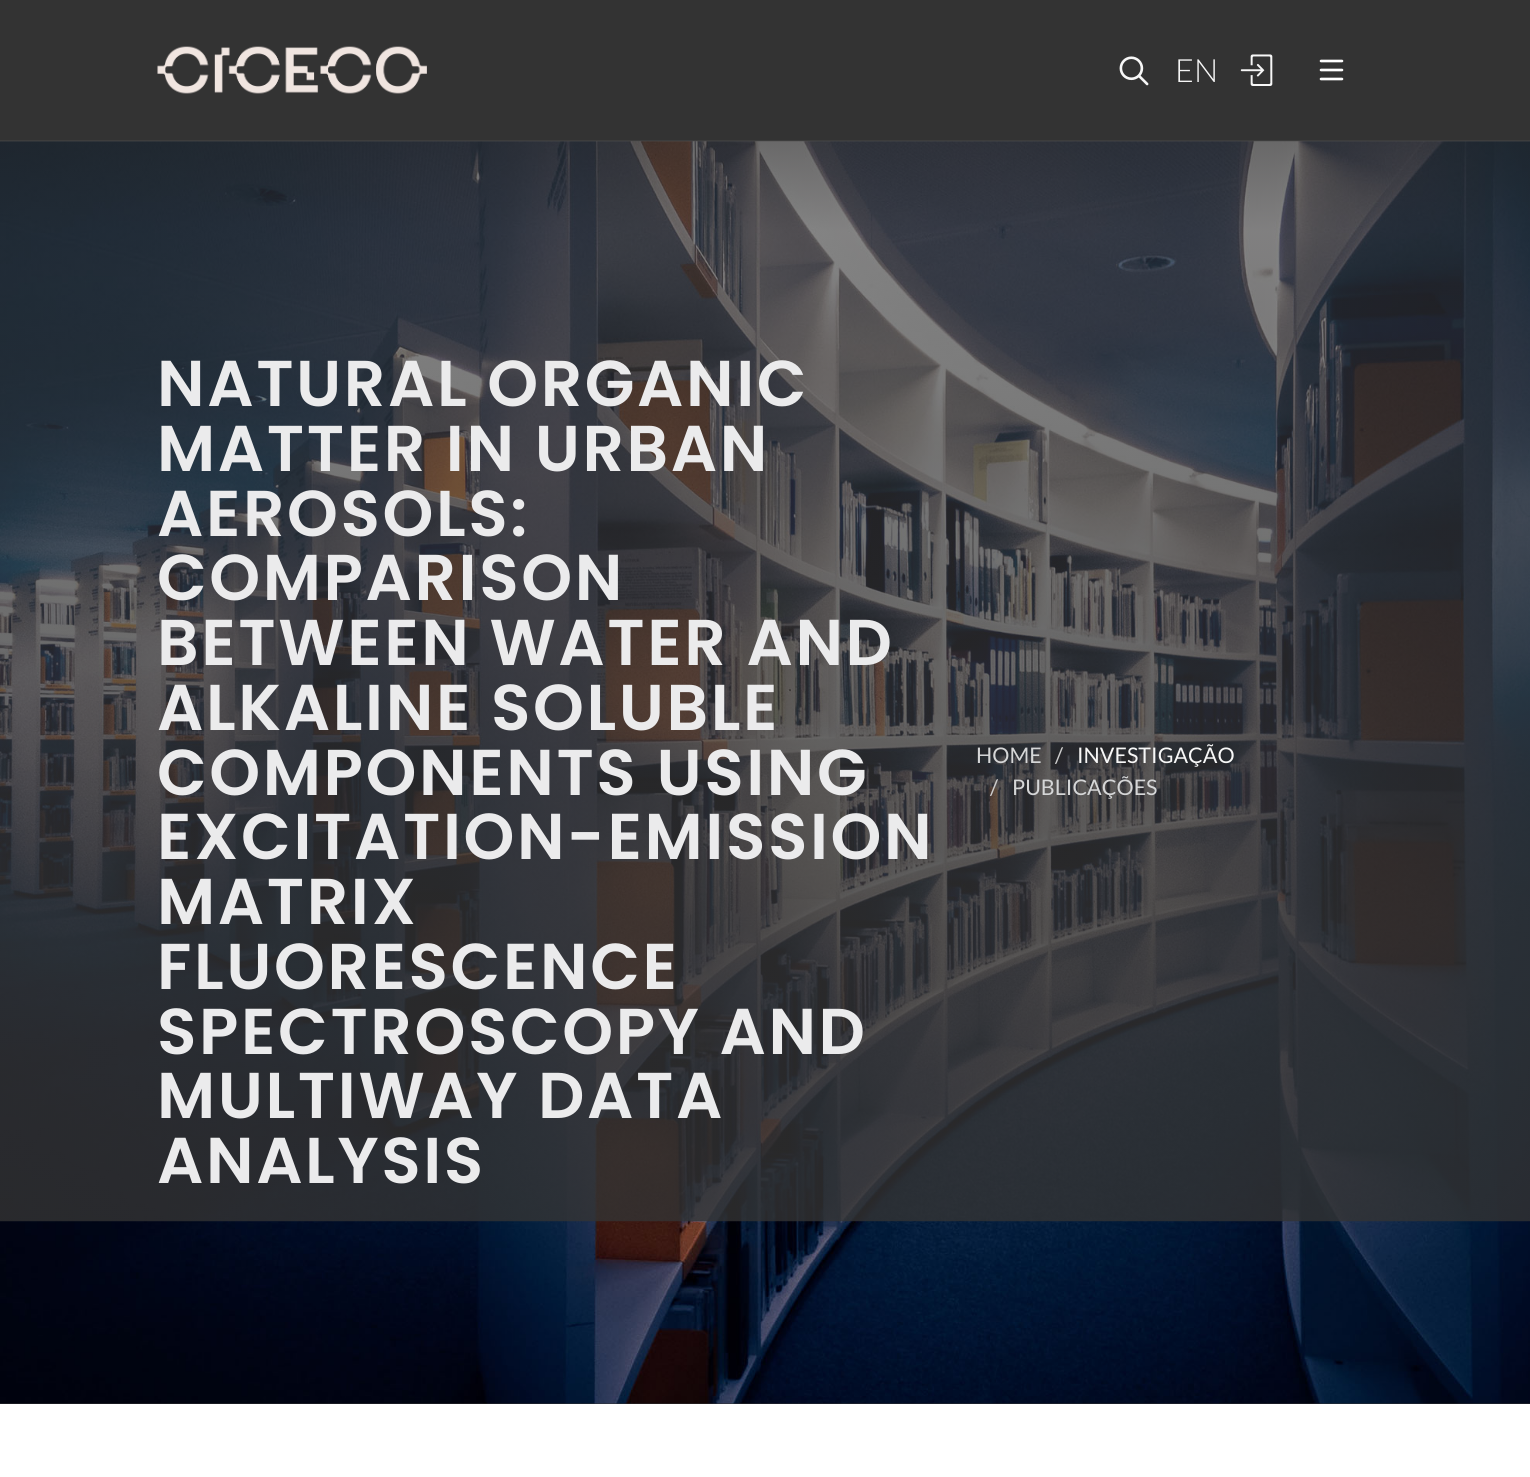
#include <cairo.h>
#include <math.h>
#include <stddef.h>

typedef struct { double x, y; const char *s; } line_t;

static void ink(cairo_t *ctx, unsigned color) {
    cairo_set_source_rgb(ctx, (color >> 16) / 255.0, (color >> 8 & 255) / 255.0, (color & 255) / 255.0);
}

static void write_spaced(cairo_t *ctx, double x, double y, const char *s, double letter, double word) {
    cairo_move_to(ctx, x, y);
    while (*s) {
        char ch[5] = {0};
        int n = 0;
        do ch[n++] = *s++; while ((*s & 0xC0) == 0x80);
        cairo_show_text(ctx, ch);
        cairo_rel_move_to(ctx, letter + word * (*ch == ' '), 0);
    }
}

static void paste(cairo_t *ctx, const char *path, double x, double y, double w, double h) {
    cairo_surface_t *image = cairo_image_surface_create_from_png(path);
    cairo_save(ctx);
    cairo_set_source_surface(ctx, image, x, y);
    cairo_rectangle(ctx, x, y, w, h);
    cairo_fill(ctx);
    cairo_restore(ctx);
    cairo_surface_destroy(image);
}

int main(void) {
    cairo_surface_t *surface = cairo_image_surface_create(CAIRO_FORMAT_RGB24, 1530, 1477);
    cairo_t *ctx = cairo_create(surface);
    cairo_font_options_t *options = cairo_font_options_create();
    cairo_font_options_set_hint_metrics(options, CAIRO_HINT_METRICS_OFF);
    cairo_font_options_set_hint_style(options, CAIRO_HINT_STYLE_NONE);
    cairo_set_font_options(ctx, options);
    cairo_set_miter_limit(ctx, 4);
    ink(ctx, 0xFFFFFF);
    cairo_paint(ctx);
    ink(ctx, 0x333333);
    cairo_rectangle(ctx, 0, 0, 1530, 140);
    cairo_fill(ctx);
    ink(ctx, 0x3D3D3D);
    cairo_rectangle(ctx, 0, 140, 1530, 2);
    cairo_fill(ctx);
    paste(ctx, "media/1.png", 157, 46, 270, 48);
    paste(ctx, "media/2.png", 1119, 56, 30, 30);
    cairo_select_font_face(ctx, "Lato Light", CAIRO_FONT_SLANT_NORMAL, CAIRO_FONT_WEIGHT_NORMAL);
    cairo_set_font_size(ctx, 32);
    ink(ctx, 0xF7F7F7);
    cairo_move_to(ctx, 1175, 82);
    cairo_show_text(ctx, "EN");
    paste(ctx, "media/3.png", 1240, 54, 33, 32);
    cairo_new_path(ctx);
    cairo_move_to(ctx, 1321, 61);
    cairo_line_to(ctx, 1342, 61);
    cairo_move_to(ctx, 1321, 70);
    cairo_line_to(ctx, 1342, 70);
    cairo_move_to(ctx, 1342, 79);
    cairo_line_to(ctx, 1321, 79);
    ink(ctx, 0xFFFFFF);
    cairo_set_line_width(ctx, 2.6);
    cairo_set_line_cap(ctx, CAIRO_LINE_CAP_ROUND);
    cairo_stroke(ctx);
    ink(ctx, 0x333333);
    cairo_rectangle(ctx, 0, 1403, 1530, 1);
    cairo_fill(ctx);
    paste(ctx, "media/4.png", 0, 141, 1530, 1263);
    cairo_select_font_face(ctx, "Poppins SemiBold", CAIRO_FONT_SLANT_NORMAL, CAIRO_FONT_WEIGHT_NORMAL);
    cairo_set_font_size(ctx, 64.75);
    ink(ctx, 0xEBEBEC);
    {
        static const line_t items[] = {
            {157, 406, "NATURAL ORGANIC"},
            {157, 471, "MATTER IN URBAN"},
            {157, 536, "AEROSOLS:"},
            {157, 600, "COMPARISON"},
            {157, 665, "BETWEEN WATER AND"},
            {157, 730, "ALKALINE SOLUBLE"},
            {157, 795, "COMPONENTS USING"},
            {157, 859, "EXCITATION-EMISSION"},
            {157, 924, "MATRIX"},
            {157, 989, "FLUORESCENCE"},
            {157, 1054, "SPECTROSCOPY AND"},
            {157, 1118, "MULTIWAY DATA"},
            {157, 1183, "ANALYSIS"},
        };
        for (size_t i = 0; i < sizeof items / sizeof *items; i++) {
            write_spaced(ctx, items[i].x, items[i].y, items[i].s, 2.6, 0);
        }
    }
    cairo_select_font_face(ctx, "Lato", CAIRO_FONT_SLANT_NORMAL, CAIRO_FONT_WEIGHT_NORMAL);
    cairo_set_font_size(ctx, 21.5);
    ink(ctx, 0xD5D6D7);
    cairo_move_to(ctx, 976, 763);
    cairo_show_text(ctx, "HOME");
    ink(ctx, 0xCCCCCC);
    cairo_move_to(ctx, 1055, 763);
    cairo_show_text(ctx, "/");
    ink(ctx, 0xF7F7F7);
    cairo_move_to(ctx, 1077, 763);
    cairo_show_text(ctx, "INVESTIGAÇÃO");
    ink(ctx, 0xCCCCCC);
    cairo_move_to(ctx, 990, 795);
    cairo_show_text(ctx, "/");
    ink(ctx, 0xD5D6D7);
    cairo_move_to(ctx, 1012, 795);
    cairo_show_text(ctx, "PUBLICAÇÕES");
    cairo_surface_write_to_png(surface, "image.png");
    cairo_font_options_destroy(options);
    cairo_destroy(ctx);
    cairo_surface_destroy(surface);
    return 0;
}
